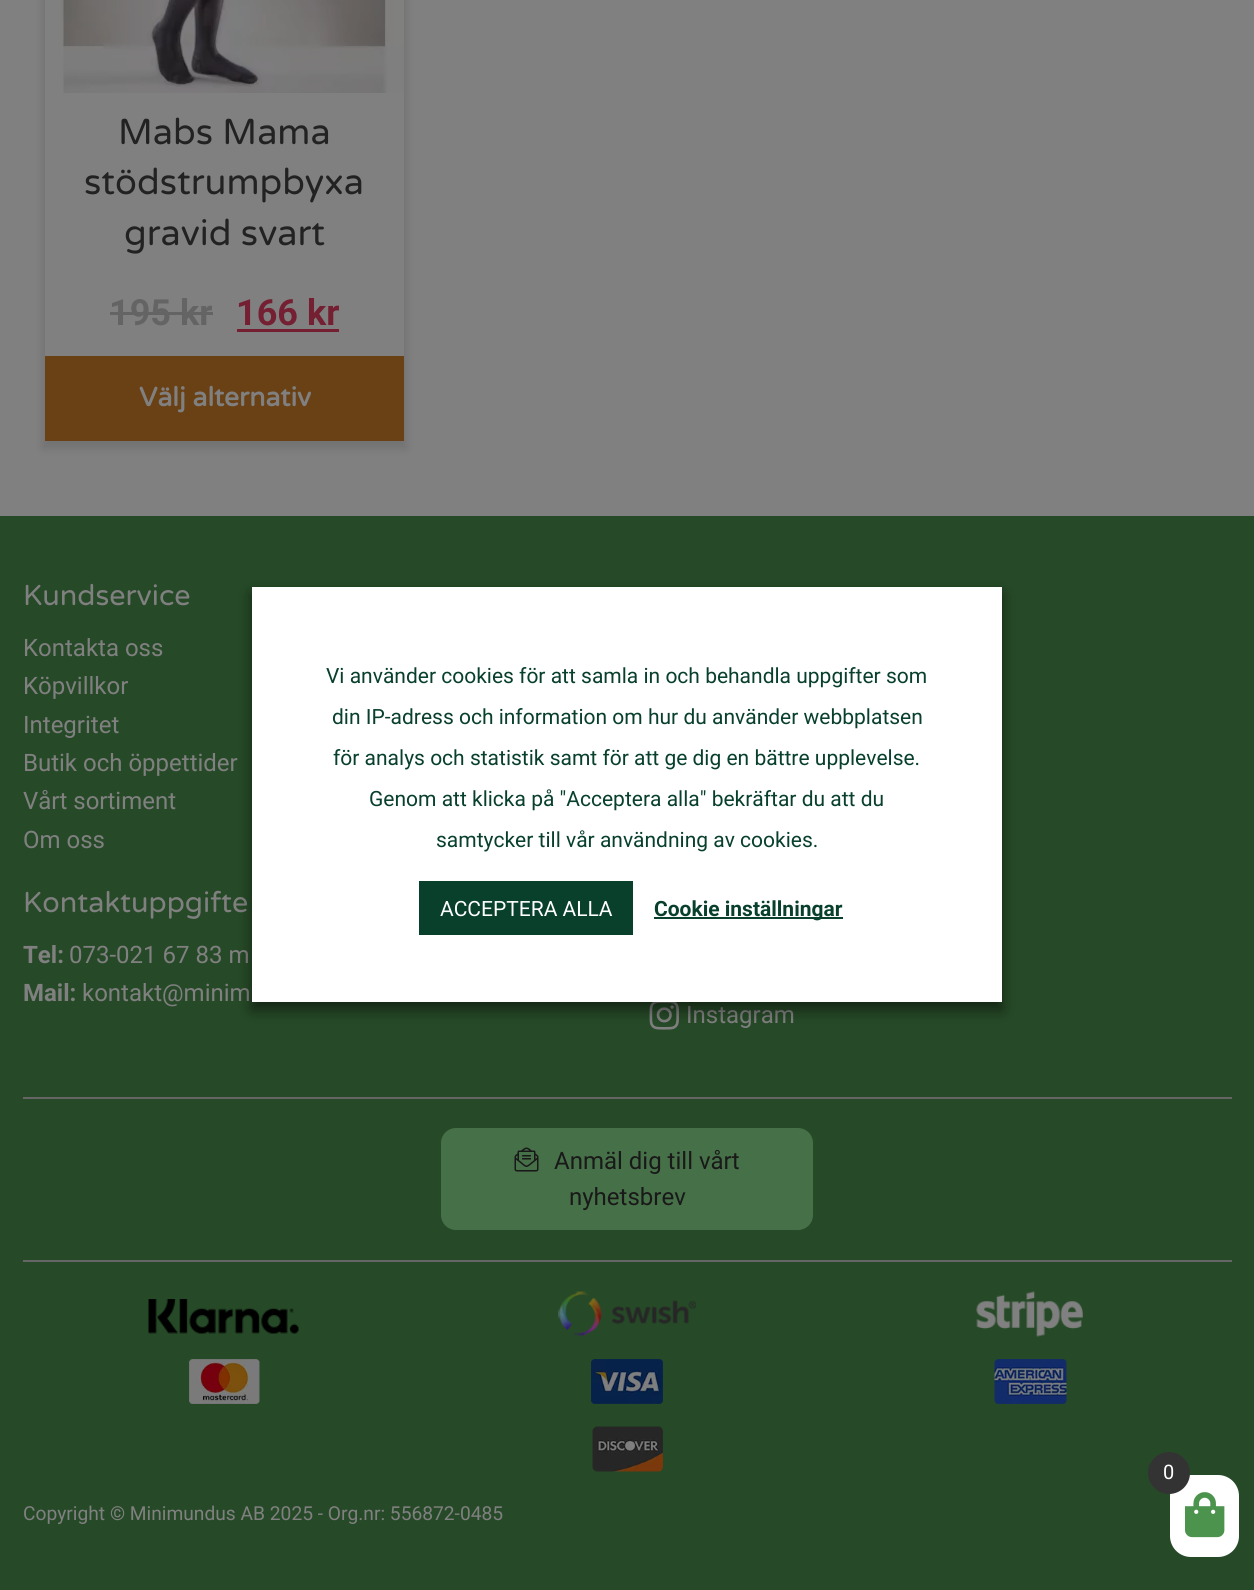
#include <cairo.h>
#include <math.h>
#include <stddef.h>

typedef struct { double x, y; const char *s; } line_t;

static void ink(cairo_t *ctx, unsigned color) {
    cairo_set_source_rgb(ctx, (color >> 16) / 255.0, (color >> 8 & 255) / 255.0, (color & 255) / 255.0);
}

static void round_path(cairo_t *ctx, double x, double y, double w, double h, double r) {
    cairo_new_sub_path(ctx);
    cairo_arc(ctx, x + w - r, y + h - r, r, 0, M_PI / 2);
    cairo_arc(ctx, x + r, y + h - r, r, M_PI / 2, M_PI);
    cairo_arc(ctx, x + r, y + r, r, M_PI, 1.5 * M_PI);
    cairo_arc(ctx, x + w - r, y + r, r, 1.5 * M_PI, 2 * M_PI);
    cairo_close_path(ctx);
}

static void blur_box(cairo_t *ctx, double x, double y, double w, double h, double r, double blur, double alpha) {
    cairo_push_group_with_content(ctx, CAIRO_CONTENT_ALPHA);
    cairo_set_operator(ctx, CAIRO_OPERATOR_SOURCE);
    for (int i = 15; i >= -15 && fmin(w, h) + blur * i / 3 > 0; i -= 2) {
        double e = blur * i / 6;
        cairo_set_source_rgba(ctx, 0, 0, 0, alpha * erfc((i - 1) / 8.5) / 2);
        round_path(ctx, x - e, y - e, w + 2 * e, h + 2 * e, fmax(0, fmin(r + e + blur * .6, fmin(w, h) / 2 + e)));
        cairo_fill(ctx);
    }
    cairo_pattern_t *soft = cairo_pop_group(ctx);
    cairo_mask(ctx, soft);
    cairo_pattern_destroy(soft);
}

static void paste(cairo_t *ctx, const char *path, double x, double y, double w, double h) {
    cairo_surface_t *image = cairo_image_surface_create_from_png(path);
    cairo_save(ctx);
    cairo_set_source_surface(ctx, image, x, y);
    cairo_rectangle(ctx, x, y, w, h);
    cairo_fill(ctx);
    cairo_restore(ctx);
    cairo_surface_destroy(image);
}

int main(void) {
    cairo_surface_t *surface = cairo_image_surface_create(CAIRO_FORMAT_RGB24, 1254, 1590);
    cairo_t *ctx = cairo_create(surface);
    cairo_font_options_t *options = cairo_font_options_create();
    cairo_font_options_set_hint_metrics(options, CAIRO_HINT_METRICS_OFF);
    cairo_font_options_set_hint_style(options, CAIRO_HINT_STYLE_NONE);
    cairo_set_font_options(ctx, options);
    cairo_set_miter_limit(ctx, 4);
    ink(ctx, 0x264A27);
    cairo_paint(ctx);
    ink(ctx, 0x808080);
    cairo_rectangle(ctx, 0, 0, 1254, 516);
    cairo_fill(ctx);
    cairo_save(ctx);
    cairo_set_fill_rule(ctx, CAIRO_FILL_RULE_EVEN_ODD);
    cairo_new_path(ctx);
    cairo_move_to(ctx, 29, 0);
    cairo_line_to(ctx, 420, 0);
    cairo_line_to(ctx, 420, 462);
    cairo_line_to(ctx, 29, 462);
    cairo_close_path(ctx);
    cairo_move_to(ctx, 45, -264);
    cairo_line_to(ctx, 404, -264);
    cairo_line_to(ctx, 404, 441);
    cairo_line_to(ctx, 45, 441);
    cairo_close_path(ctx);
    cairo_clip(ctx);
    ink(ctx, 0x000000);
    blur_box(ctx, 42, -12, 365, 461, 0, 4, 0.1);
    cairo_restore(ctx);
    paste(ctx, "media/1.png", 61, 0, 343, 93);
    cairo_select_font_face(ctx, "Varela Round", CAIRO_FONT_SLANT_NORMAL, CAIRO_FONT_WEIGHT_NORMAL);
    cairo_set_font_size(ctx, 36);
    ink(ctx, 0x222222);
    {
        static const line_t items[] = {
            {118, 144, "Mabs Mama"},
            {84, 194, "stödstrumpbyxa"},
            {124, 245, "gravid svart"},
        };
        for (size_t i = 0; i < sizeof items / sizeof *items; i++) {
            cairo_move_to(ctx, items[i].x, items[i].y);
            cairo_show_text(ctx, items[i].s);
        }
    }
    cairo_select_font_face(ctx, "Roboto", CAIRO_FONT_SLANT_NORMAL, CAIRO_FONT_WEIGHT_BOLD);
    ink(ctx, 0x646464);
    cairo_move_to(ctx, 109, 325);
    cairo_show_text(ctx, "195 kr");
    cairo_rectangle(ctx, 110, 312, 103, 3);
    cairo_fill(ctx);
    ink(ctx, 0x741F32);
    cairo_move_to(ctx, 236, 325);
    cairo_show_text(ctx, "166 kr");
    cairo_rectangle(ctx, 237, 329, 102, 3);
    cairo_fill(ctx);
    ink(ctx, 0x6A4015);
    cairo_rectangle(ctx, 45, 356, 359, 85);
    cairo_fill(ctx);
    cairo_select_font_face(ctx, "Varela Round", CAIRO_FONT_SLANT_NORMAL, CAIRO_FONT_WEIGHT_BOLD);
    cairo_set_font_size(ctx, 26.5);
    ink(ctx, 0x808080);
    cairo_move_to(ctx, 139, 406);
    cairo_show_text(ctx, "Välj alternativ");
    cairo_select_font_face(ctx, "Varela Round", CAIRO_FONT_SLANT_NORMAL, CAIRO_FONT_WEIGHT_NORMAL);
    cairo_set_font_size(ctx, 28.75);
    cairo_move_to(ctx, 23, 605);
    cairo_show_text(ctx, "Kundservice");
    cairo_select_font_face(ctx, "Roboto", CAIRO_FONT_SLANT_NORMAL, CAIRO_FONT_WEIGHT_NORMAL);
    cairo_set_font_size(ctx, 24);
    {
        static const line_t items[] = {
            {23, 656, "Kontakta oss"},
            {23, 694, "Köpvillkor"},
            {23, 733, "Integritet"},
            {23, 771, "Butik och öppettider"},
            {23, 809, "Vårt sortiment"},
            {23, 848, "Om oss"},
        };
        for (size_t i = 0; i < sizeof items / sizeof *items; i++) {
            cairo_move_to(ctx, items[i].x, items[i].y);
            cairo_show_text(ctx, items[i].s);
        }
    }
    cairo_select_font_face(ctx, "Varela Round", CAIRO_FONT_SLANT_NORMAL, CAIRO_FONT_WEIGHT_NORMAL);
    cairo_set_font_size(ctx, 28.75);
    cairo_move_to(ctx, 23, 912);
    cairo_show_text(ctx, "Kontaktuppgifte");
    cairo_select_font_face(ctx, "Roboto", CAIRO_FONT_SLANT_NORMAL, CAIRO_FONT_WEIGHT_BOLD);
    cairo_set_font_size(ctx, 24);
    cairo_move_to(ctx, 23, 963);
    cairo_show_text(ctx, "Tel:");
    cairo_select_font_face(ctx, "Roboto", CAIRO_FONT_SLANT_NORMAL, CAIRO_FONT_WEIGHT_NORMAL);
    cairo_move_to(ctx, 69, 963);
    cairo_show_text(ctx, "073-021 67 83 m");
    cairo_select_font_face(ctx, "Roboto", CAIRO_FONT_SLANT_NORMAL, CAIRO_FONT_WEIGHT_BOLD);
    cairo_move_to(ctx, 23, 1001);
    cairo_show_text(ctx, "Mail:");
    cairo_select_font_face(ctx, "Roboto", CAIRO_FONT_SLANT_NORMAL, CAIRO_FONT_WEIGHT_NORMAL);
    cairo_move_to(ctx, 82, 1001);
    cairo_show_text(ctx, "kontakt@minim");
    paste(ctx, "media/2.png", 649, 1002, 30, 28);
    cairo_move_to(ctx, 686, 1023);
    cairo_show_text(ctx, "Instagram");
    ink(ctx, 0x656565);
    cairo_rectangle(ctx, 23, 1097, 1209, 2);
    cairo_fill(ctx);
    ink(ctx, 0x467047);
    round_path(ctx, 441, 1128, 372, 102, 15);
    cairo_fill(ctx);
    paste(ctx, "media/3.png", 514, 1147, 25, 25);
    ink(ctx, 0x191919);
    cairo_move_to(ctx, 554, 1169);
    cairo_show_text(ctx, "Anmäl dig till vårt");
    cairo_move_to(ctx, 569, 1205);
    cairo_show_text(ctx, "nyhetsbrev");
    ink(ctx, 0x656565);
    cairo_rectangle(ctx, 23, 1260, 1209, 2);
    cairo_fill(ctx);
    paste(ctx, "media/4.png", 148, 1299, 151, 35);
    paste(ctx, "media/5.png", 558, 1291, 138, 45);
    paste(ctx, "media/6.png", 976, 1291, 107, 46);
    paste(ctx, "media/7.png", 189, 1359, 71, 45);
    paste(ctx, "media/8.png", 591, 1359, 72, 45);
    paste(ctx, "media/9.png", 994, 1359, 73, 45);
    paste(ctx, "media/10.png", 592, 1426, 71, 46);
    cairo_set_font_size(ctx, 19.2);
    ink(ctx, 0x808080);
    cairo_move_to(ctx, 23, 1520);
    cairo_show_text(ctx, "Copyright © Minimundus AB 2025 - Org.nr: 556872-0485");
    ink(ctx, 0x000000);
    blur_box(ctx, 252, 594, 750, 416, 0, 7.5, 0.5);
    ink(ctx, 0xFFFFFF);
    cairo_rectangle(ctx, 252, 587, 750, 415);
    cairo_fill(ctx);
    cairo_set_font_size(ctx, 21);
    ink(ctx, 0x08402C);
    {
        static const line_t items[] = {
            {326, 683, "Vi använder cookies för att samla in och behandla uppgifter som"},
            {332, 724, "din IP-adress och information om hur du använder webbplatsen"},
            {333, 765, "för analys och statistik samt för att ge dig en bättre upplevelse."},
            {369, 806, "Genom att klicka på \"Acceptera alla\" bekräftar du att du"},
            {436, 847, "samtycker till vår användning av cookies."},
        };
        for (size_t i = 0; i < sizeof items / sizeof *items; i++) {
            cairo_move_to(ctx, items[i].x, items[i].y);
            cairo_show_text(ctx, items[i].s);
        }
    }
    cairo_rectangle(ctx, 419, 881, 214, 54);
    cairo_fill(ctx);
    ink(ctx, 0xFFFFFF);
    cairo_move_to(ctx, 440, 916);
    cairo_show_text(ctx, "ACCEPTERA ALLA");
    ink(ctx, 0x08402C);
    cairo_rectangle(ctx, 654, 917, 189, 2);
    cairo_fill(ctx);
    cairo_select_font_face(ctx, "Roboto", CAIRO_FONT_SLANT_NORMAL, CAIRO_FONT_WEIGHT_BOLD);
    cairo_move_to(ctx, 654, 916);
    cairo_show_text(ctx, "Cookie inställningar");
    ink(ctx, 0xFFFFFF);
    round_path(ctx, 1170, 1475, 69, 82, 21);
    cairo_fill(ctx);
    paste(ctx, "media/11.png", 1185, 1492, 40, 46);
    ink(ctx, 0x333333);
    cairo_arc(ctx, 1169, 1473, 21, 0, 2 * M_PI);
    cairo_fill(ctx);
    cairo_select_font_face(ctx, "Roboto", CAIRO_FONT_SLANT_NORMAL, CAIRO_FONT_WEIGHT_NORMAL);
    cairo_set_font_size(ctx, 20);
    ink(ctx, 0xFFFFFF);
    cairo_move_to(ctx, 1163, 1479);
    cairo_show_text(ctx, "0");
    cairo_surface_write_to_png(surface, "image.png");
    cairo_font_options_destroy(options);
    cairo_destroy(ctx);
    cairo_surface_destroy(surface);
    return 0;
}
